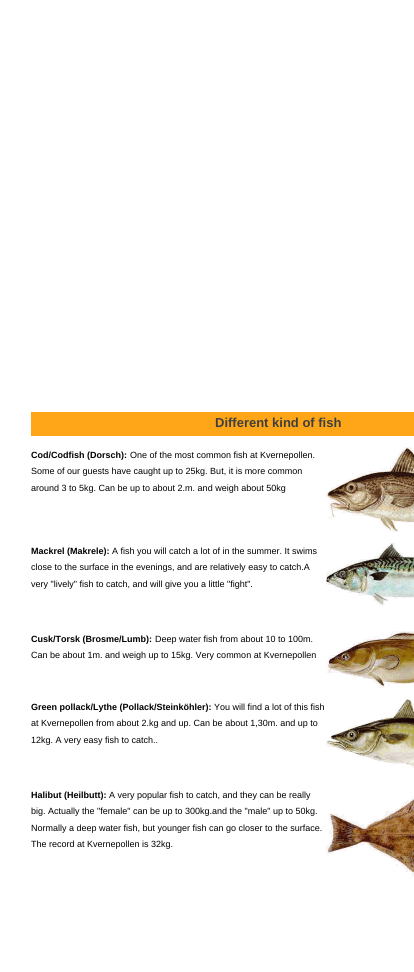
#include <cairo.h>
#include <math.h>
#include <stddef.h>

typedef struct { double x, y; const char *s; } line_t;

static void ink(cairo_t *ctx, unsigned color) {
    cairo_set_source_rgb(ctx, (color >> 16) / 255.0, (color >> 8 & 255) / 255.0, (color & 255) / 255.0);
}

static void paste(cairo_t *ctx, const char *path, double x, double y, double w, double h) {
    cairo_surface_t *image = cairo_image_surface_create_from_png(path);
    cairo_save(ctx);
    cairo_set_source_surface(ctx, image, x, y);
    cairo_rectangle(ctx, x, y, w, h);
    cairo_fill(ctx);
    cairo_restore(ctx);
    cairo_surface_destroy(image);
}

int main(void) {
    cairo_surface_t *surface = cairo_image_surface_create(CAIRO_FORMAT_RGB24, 414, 972);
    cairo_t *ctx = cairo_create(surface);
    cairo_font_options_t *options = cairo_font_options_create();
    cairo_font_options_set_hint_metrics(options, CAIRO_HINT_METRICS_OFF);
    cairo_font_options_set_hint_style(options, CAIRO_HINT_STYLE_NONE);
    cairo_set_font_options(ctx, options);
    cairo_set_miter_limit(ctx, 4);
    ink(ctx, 0xFFFFFF);
    cairo_paint(ctx);
    ink(ctx, 0xFFA618);
    cairo_rectangle(ctx, 31, 412, 383, 24);
    cairo_fill(ctx);
    cairo_select_font_face(ctx, "Liberation Sans", CAIRO_FONT_SLANT_NORMAL, CAIRO_FONT_WEIGHT_BOLD);
    cairo_set_font_size(ctx, 13);
    ink(ctx, 0x3F3F3F);
    cairo_move_to(ctx, 215, 427);
    cairo_show_text(ctx, "Different kind of fish");
    cairo_set_font_size(ctx, 9);
    ink(ctx, 0x000000);
    cairo_move_to(ctx, 31, 458);
    cairo_show_text(ctx, "Cod/Codfish (Dorsch):");
    paste(ctx, "media/1.png", 326, 447, 88, 85);
    cairo_select_font_face(ctx, "Liberation Sans", CAIRO_FONT_SLANT_NORMAL, CAIRO_FONT_WEIGHT_NORMAL);
    {
        static const line_t items[] = {
            {130, 458, "One of the most common fish at Kvernepollen."},
            {31, 474, "Some of our guests have caught up to 25kg. But, it is more common"},
            {31, 491, "around 3 to 5kg. Can be up to about 2.m. and weigh about 50kg"},
        };
        for (size_t i = 0; i < sizeof items / sizeof *items; i++) {
            cairo_move_to(ctx, items[i].x, items[i].y);
            cairo_show_text(ctx, items[i].s);
        }
    }
    cairo_select_font_face(ctx, "Liberation Sans", CAIRO_FONT_SLANT_NORMAL, CAIRO_FONT_WEIGHT_BOLD);
    cairo_move_to(ctx, 31, 554);
    cairo_show_text(ctx, "Mackrel (Makrele):");
    paste(ctx, "media/2.png", 326, 543, 88, 63);
    cairo_select_font_face(ctx, "Liberation Sans", CAIRO_FONT_SLANT_NORMAL, CAIRO_FONT_WEIGHT_NORMAL);
    {
        static const line_t items[] = {
            {112, 554, "A fish you will catch a lot of in the summer. It swims"},
            {31, 570, "close to the surface in the evenings, and are relatively easy to catch.A"},
            {31, 587, "very \"lively\" fish to catch, and will give you a little \"fight\"."},
        };
        for (size_t i = 0; i < sizeof items / sizeof *items; i++) {
            cairo_move_to(ctx, items[i].x, items[i].y);
            cairo_show_text(ctx, items[i].s);
        }
    }
    cairo_select_font_face(ctx, "Liberation Sans", CAIRO_FONT_SLANT_NORMAL, CAIRO_FONT_WEIGHT_BOLD);
    cairo_move_to(ctx, 31, 642);
    cairo_show_text(ctx, "Cusk/Torsk (Brosme/Lumb):");
    paste(ctx, "media/3.png", 326, 631, 88, 57);
    cairo_select_font_face(ctx, "Liberation Sans", CAIRO_FONT_SLANT_NORMAL, CAIRO_FONT_WEIGHT_NORMAL);
    cairo_move_to(ctx, 155, 642);
    cairo_show_text(ctx, "Deep water fish from about 10 to 100m.");
    cairo_move_to(ctx, 31, 658);
    cairo_show_text(ctx, "Can be about 1m. and weigh up to 15kg. Very common at Kvernepollen");
    cairo_select_font_face(ctx, "Liberation Sans", CAIRO_FONT_SLANT_NORMAL, CAIRO_FONT_WEIGHT_BOLD);
    cairo_move_to(ctx, 31, 710);
    cairo_show_text(ctx, "Green pollack/Lythe (Pollack/Steinköhler):");
    paste(ctx, "media/4.png", 326, 699, 88, 69);
    cairo_select_font_face(ctx, "Liberation Sans", CAIRO_FONT_SLANT_NORMAL, CAIRO_FONT_WEIGHT_NORMAL);
    {
        static const line_t items[] = {
            {214, 710, "You will find a lot of this fish"},
            {31, 726, "at Kvernepollen from about 2.kg and up. Can be about 1,30m. and up to"},
            {31, 743, "12kg. A very easy fish to catch.."},
        };
        for (size_t i = 0; i < sizeof items / sizeof *items; i++) {
            cairo_move_to(ctx, items[i].x, items[i].y);
            cairo_show_text(ctx, items[i].s);
        }
    }
    cairo_select_font_face(ctx, "Liberation Sans", CAIRO_FONT_SLANT_NORMAL, CAIRO_FONT_WEIGHT_BOLD);
    cairo_move_to(ctx, 31, 798);
    cairo_show_text(ctx, "Halibut (Heilbutt):");
    paste(ctx, "media/5.png", 326, 797, 88, 80);
    cairo_select_font_face(ctx, "Liberation Sans", CAIRO_FONT_SLANT_NORMAL, CAIRO_FONT_WEIGHT_NORMAL);
    {
        static const line_t items[] = {
            {109, 798, "A very popular fish to catch, and they can be really"},
            {31, 814, "big. Actually the \"female\" can be up to 300kg.and the \"male\" up to 50kg."},
            {31, 831, "Normally a deep water fish, but younger fish can go closer to the surface."},
            {31, 847, "The record at Kvernepollen is 32kg."},
        };
        for (size_t i = 0; i < sizeof items / sizeof *items; i++) {
            cairo_move_to(ctx, items[i].x, items[i].y);
            cairo_show_text(ctx, items[i].s);
        }
    }
    cairo_surface_write_to_png(surface, "image.png");
    cairo_font_options_destroy(options);
    cairo_destroy(ctx);
    cairo_surface_destroy(surface);
    return 0;
}
